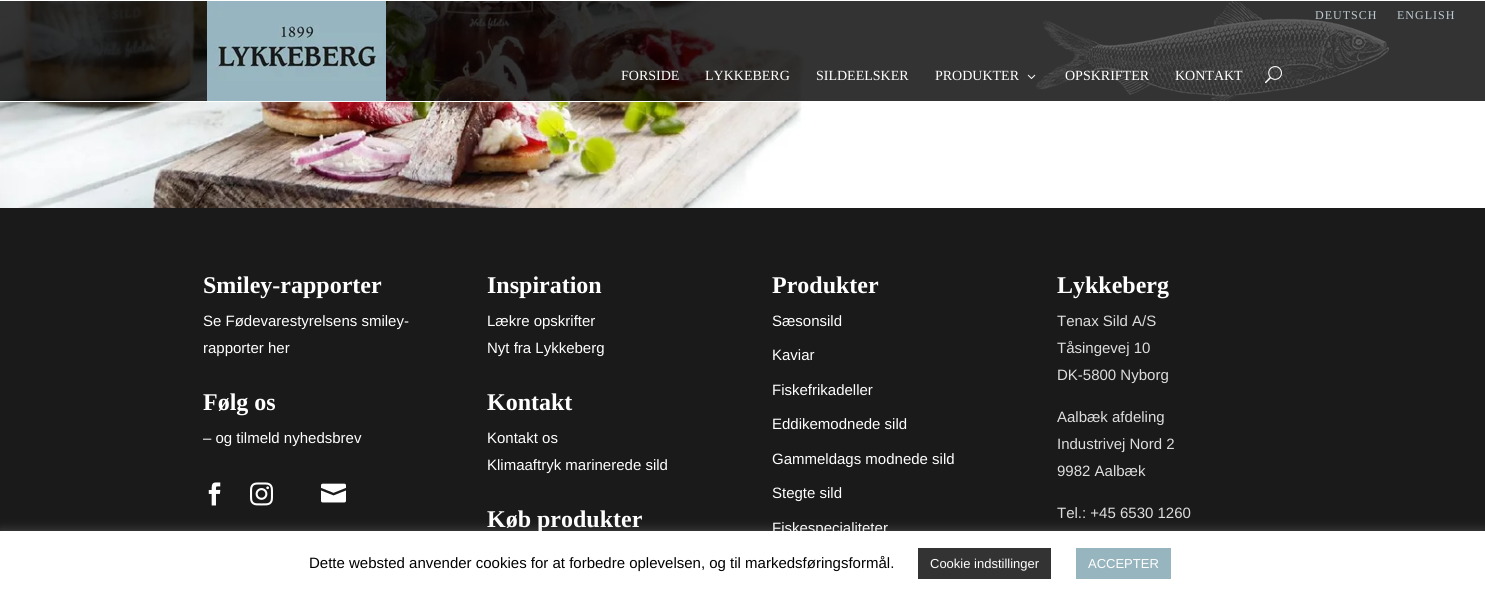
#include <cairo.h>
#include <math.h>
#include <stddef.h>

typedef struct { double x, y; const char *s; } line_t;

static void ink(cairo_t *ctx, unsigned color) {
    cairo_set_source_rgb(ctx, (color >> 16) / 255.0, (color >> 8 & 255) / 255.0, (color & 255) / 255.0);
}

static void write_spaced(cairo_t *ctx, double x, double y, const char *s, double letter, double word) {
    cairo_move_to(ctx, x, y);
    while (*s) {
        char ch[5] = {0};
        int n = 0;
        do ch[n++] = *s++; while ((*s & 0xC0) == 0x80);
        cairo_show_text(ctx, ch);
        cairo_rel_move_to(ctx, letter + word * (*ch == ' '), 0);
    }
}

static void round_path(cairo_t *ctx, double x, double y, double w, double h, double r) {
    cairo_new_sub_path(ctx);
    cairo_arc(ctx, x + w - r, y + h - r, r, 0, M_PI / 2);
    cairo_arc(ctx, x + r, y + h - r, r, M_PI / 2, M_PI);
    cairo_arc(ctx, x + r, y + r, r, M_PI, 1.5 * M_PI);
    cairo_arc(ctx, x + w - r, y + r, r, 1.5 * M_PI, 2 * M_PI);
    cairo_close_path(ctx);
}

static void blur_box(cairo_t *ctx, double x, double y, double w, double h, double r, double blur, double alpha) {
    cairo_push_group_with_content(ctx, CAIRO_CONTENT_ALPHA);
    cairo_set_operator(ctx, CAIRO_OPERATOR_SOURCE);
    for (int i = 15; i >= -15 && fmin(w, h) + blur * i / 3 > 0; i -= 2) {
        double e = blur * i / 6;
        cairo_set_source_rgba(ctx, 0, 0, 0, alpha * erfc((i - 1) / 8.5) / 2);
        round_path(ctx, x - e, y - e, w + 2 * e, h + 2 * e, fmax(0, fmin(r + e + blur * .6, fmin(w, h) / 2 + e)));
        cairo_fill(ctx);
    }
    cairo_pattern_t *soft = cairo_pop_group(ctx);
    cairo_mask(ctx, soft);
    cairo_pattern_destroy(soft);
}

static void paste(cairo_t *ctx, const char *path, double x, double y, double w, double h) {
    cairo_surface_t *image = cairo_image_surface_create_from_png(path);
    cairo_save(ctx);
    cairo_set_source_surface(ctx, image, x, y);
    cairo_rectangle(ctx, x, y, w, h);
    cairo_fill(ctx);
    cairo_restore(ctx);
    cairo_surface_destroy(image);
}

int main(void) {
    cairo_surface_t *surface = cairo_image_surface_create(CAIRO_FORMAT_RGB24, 1485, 596);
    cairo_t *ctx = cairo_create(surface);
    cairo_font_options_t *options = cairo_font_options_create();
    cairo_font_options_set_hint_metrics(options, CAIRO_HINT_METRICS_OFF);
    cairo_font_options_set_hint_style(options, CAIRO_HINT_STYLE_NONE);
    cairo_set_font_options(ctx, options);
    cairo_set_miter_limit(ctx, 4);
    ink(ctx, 0x1A1A1A);
    cairo_paint(ctx);
    paste(ctx, "media/5.png", 0, 1, 1485, 207);
    cairo_set_source_rgba(ctx, 0, 0, 0, 0.8);
    cairo_rectangle(ctx, 0, 1, 1485, 100);
    cairo_fill(ctx);
    paste(ctx, "media/1.png", 1035, 1, 354, 100);
    cairo_select_font_face(ctx, "Liberation Serif", CAIRO_FONT_SLANT_NORMAL, CAIRO_FONT_WEIGHT_NORMAL);
    cairo_set_font_size(ctx, 12);
    ink(ctx, 0xBCCAD1);
    write_spaced(ctx, 1315, 19, "DEUTSCH", 1, 0);
    write_spaced(ctx, 1397, 19, "ENGLISH", 1, 0);
    ink(ctx, 0xFFFFFF);
    cairo_rectangle(ctx, 0, 0, 1485, 1);
    cairo_fill(ctx);
    cairo_rectangle(ctx, 0, 101, 802, 1);
    cairo_fill(ctx);
    paste(ctx, "media/2.png", 207, 1, 179, 100);
    cairo_set_font_size(ctx, 14);
    {
        static const line_t items[] = {
            {621, 80, "FORSIDE"},
            {705, 80, "LYKKEBERG"},
            {816, 80, "SILDEELSKER"},
            {935, 80, "PRODUKTER"},
        };
        for (size_t i = 0; i < sizeof items / sizeof *items; i++) {
            cairo_move_to(ctx, items[i].x, items[i].y);
            cairo_show_text(ctx, items[i].s);
        }
    }
    paste(ctx, "media/3.png", 1027, 74, 9, 5);
    cairo_move_to(ctx, 1065, 80);
    cairo_show_text(ctx, "OPSKRIFTER");
    cairo_move_to(ctx, 1175, 80);
    cairo_show_text(ctx, "KONTAKT");
    paste(ctx, "media/4.png", 1265, 66, 17, 18);
    cairo_select_font_face(ctx, "Liberation Serif", CAIRO_FONT_SLANT_NORMAL, CAIRO_FONT_WEIGHT_BOLD);
    cairo_set_font_size(ctx, 24);
    cairo_move_to(ctx, 203, 293);
    cairo_show_text(ctx, "Smiley-rapporter");
    cairo_select_font_face(ctx, "Liberation Sans", CAIRO_FONT_SLANT_NORMAL, CAIRO_FONT_WEIGHT_NORMAL);
    cairo_set_font_size(ctx, 15);
    cairo_move_to(ctx, 203, 326);
    cairo_show_text(ctx, "Se Fødevarestyrelsens smiley-");
    cairo_move_to(ctx, 203, 353);
    cairo_show_text(ctx, "rapporter her");
    cairo_select_font_face(ctx, "Liberation Serif", CAIRO_FONT_SLANT_NORMAL, CAIRO_FONT_WEIGHT_BOLD);
    cairo_set_font_size(ctx, 24);
    cairo_move_to(ctx, 203, 410);
    cairo_show_text(ctx, "Følg os");
    cairo_select_font_face(ctx, "Liberation Sans", CAIRO_FONT_SLANT_NORMAL, CAIRO_FONT_WEIGHT_NORMAL);
    cairo_set_font_size(ctx, 15);
    cairo_move_to(ctx, 203, 443);
    cairo_show_text(ctx, "– og tilmeld nyhedsbrev");
    paste(ctx, "media/6.png", 208, 482, 13, 24);
    paste(ctx, "media/7.png", 250, 482, 23, 24);
    paste(ctx, "media/8.png", 321, 483, 25, 20);
    cairo_select_font_face(ctx, "Liberation Serif", CAIRO_FONT_SLANT_NORMAL, CAIRO_FONT_WEIGHT_BOLD);
    cairo_set_font_size(ctx, 24);
    cairo_move_to(ctx, 487, 293);
    cairo_show_text(ctx, "Inspiration");
    cairo_select_font_face(ctx, "Liberation Sans", CAIRO_FONT_SLANT_NORMAL, CAIRO_FONT_WEIGHT_NORMAL);
    cairo_set_font_size(ctx, 15);
    cairo_move_to(ctx, 487, 326);
    cairo_show_text(ctx, "Lækre opskrifter");
    cairo_move_to(ctx, 487, 353);
    cairo_show_text(ctx, "Nyt fra Lykkeberg");
    cairo_select_font_face(ctx, "Liberation Serif", CAIRO_FONT_SLANT_NORMAL, CAIRO_FONT_WEIGHT_BOLD);
    cairo_set_font_size(ctx, 24);
    cairo_move_to(ctx, 487, 410);
    cairo_show_text(ctx, "Kontakt");
    cairo_select_font_face(ctx, "Liberation Sans", CAIRO_FONT_SLANT_NORMAL, CAIRO_FONT_WEIGHT_NORMAL);
    cairo_set_font_size(ctx, 15);
    cairo_move_to(ctx, 487, 443);
    cairo_show_text(ctx, "Kontakt os");
    cairo_move_to(ctx, 487, 470);
    cairo_show_text(ctx, "Klimaaftryk marinerede sild");
    cairo_select_font_face(ctx, "Liberation Serif", CAIRO_FONT_SLANT_NORMAL, CAIRO_FONT_WEIGHT_BOLD);
    cairo_set_font_size(ctx, 24);
    cairo_move_to(ctx, 487, 527);
    cairo_show_text(ctx, "Køb produkter");
    cairo_move_to(ctx, 772, 293);
    cairo_show_text(ctx, "Produkter");
    cairo_select_font_face(ctx, "Liberation Sans", CAIRO_FONT_SLANT_NORMAL, CAIRO_FONT_WEIGHT_NORMAL);
    cairo_set_font_size(ctx, 15);
    {
        static const line_t items[] = {
            {772, 326, "Sæsonsild"},
            {772, 360, "Kaviar"},
            {772, 395, "Fiskefrikadeller"},
            {772, 429, "Eddikemodnede sild"},
            {772, 464, "Gammeldags modnede sild"},
            {772, 498, "Stegte sild"},
            {772, 533, "Fiskespecialiteter"},
        };
        for (size_t i = 0; i < sizeof items / sizeof *items; i++) {
            cairo_move_to(ctx, items[i].x, items[i].y);
            cairo_show_text(ctx, items[i].s);
        }
    }
    cairo_select_font_face(ctx, "Liberation Serif", CAIRO_FONT_SLANT_NORMAL, CAIRO_FONT_WEIGHT_BOLD);
    cairo_set_font_size(ctx, 24);
    cairo_move_to(ctx, 1057, 293);
    cairo_show_text(ctx, "Lykkeberg");
    cairo_select_font_face(ctx, "Liberation Sans", CAIRO_FONT_SLANT_NORMAL, CAIRO_FONT_WEIGHT_NORMAL);
    cairo_set_font_size(ctx, 15);
    ink(ctx, 0xDDDDDD);
    {
        static const line_t items[] = {
            {1057, 326, "Tenax Sild A/S"},
            {1057, 353, "Tåsingevej 10"},
            {1057, 380, "DK-5800 Nyborg"},
            {1057, 422, "Aalbæk afdeling"},
            {1057, 449, "Industrivej Nord 2"},
            {1057, 476, "9982 Aalbæk"},
            {1057, 518, "Tel.: +45 6530 1260"},
        };
        for (size_t i = 0; i < sizeof items / sizeof *items; i++) {
            cairo_move_to(ctx, items[i].x, items[i].y);
            cairo_show_text(ctx, items[i].s);
        }
    }
    ink(ctx, 0xACABAB);
    blur_box(ctx, 0, 530, 1485, 65, 0, 5, 0.3);
    ink(ctx, 0xFFFFFF);
    cairo_rectangle(ctx, 0, 531, 1485, 65);
    cairo_fill(ctx);
    ink(ctx, 0x000000);
    cairo_move_to(ctx, 309, 568);
    cairo_show_text(ctx, "Dette websted anvender cookies for at forbedre oplevelsen, og til markedsføringsformål.");
    ink(ctx, 0x333333);
    cairo_rectangle(ctx, 918, 548, 133, 31);
    cairo_fill(ctx);
    cairo_set_font_size(ctx, 13);
    ink(ctx, 0xFFFFFF);
    cairo_move_to(ctx, 930, 568);
    cairo_show_text(ctx, "Cookie indstillinger");
    ink(ctx, 0x97B5BF);
    cairo_rectangle(ctx, 1076, 548, 95, 31);
    cairo_fill(ctx);
    ink(ctx, 0xFFFFFF);
    cairo_move_to(ctx, 1088, 568);
    cairo_show_text(ctx, "ACCEPTER");
    cairo_surface_write_to_png(surface, "image.png");
    cairo_font_options_destroy(options);
    cairo_destroy(ctx);
    cairo_surface_destroy(surface);
    return 0;
}
